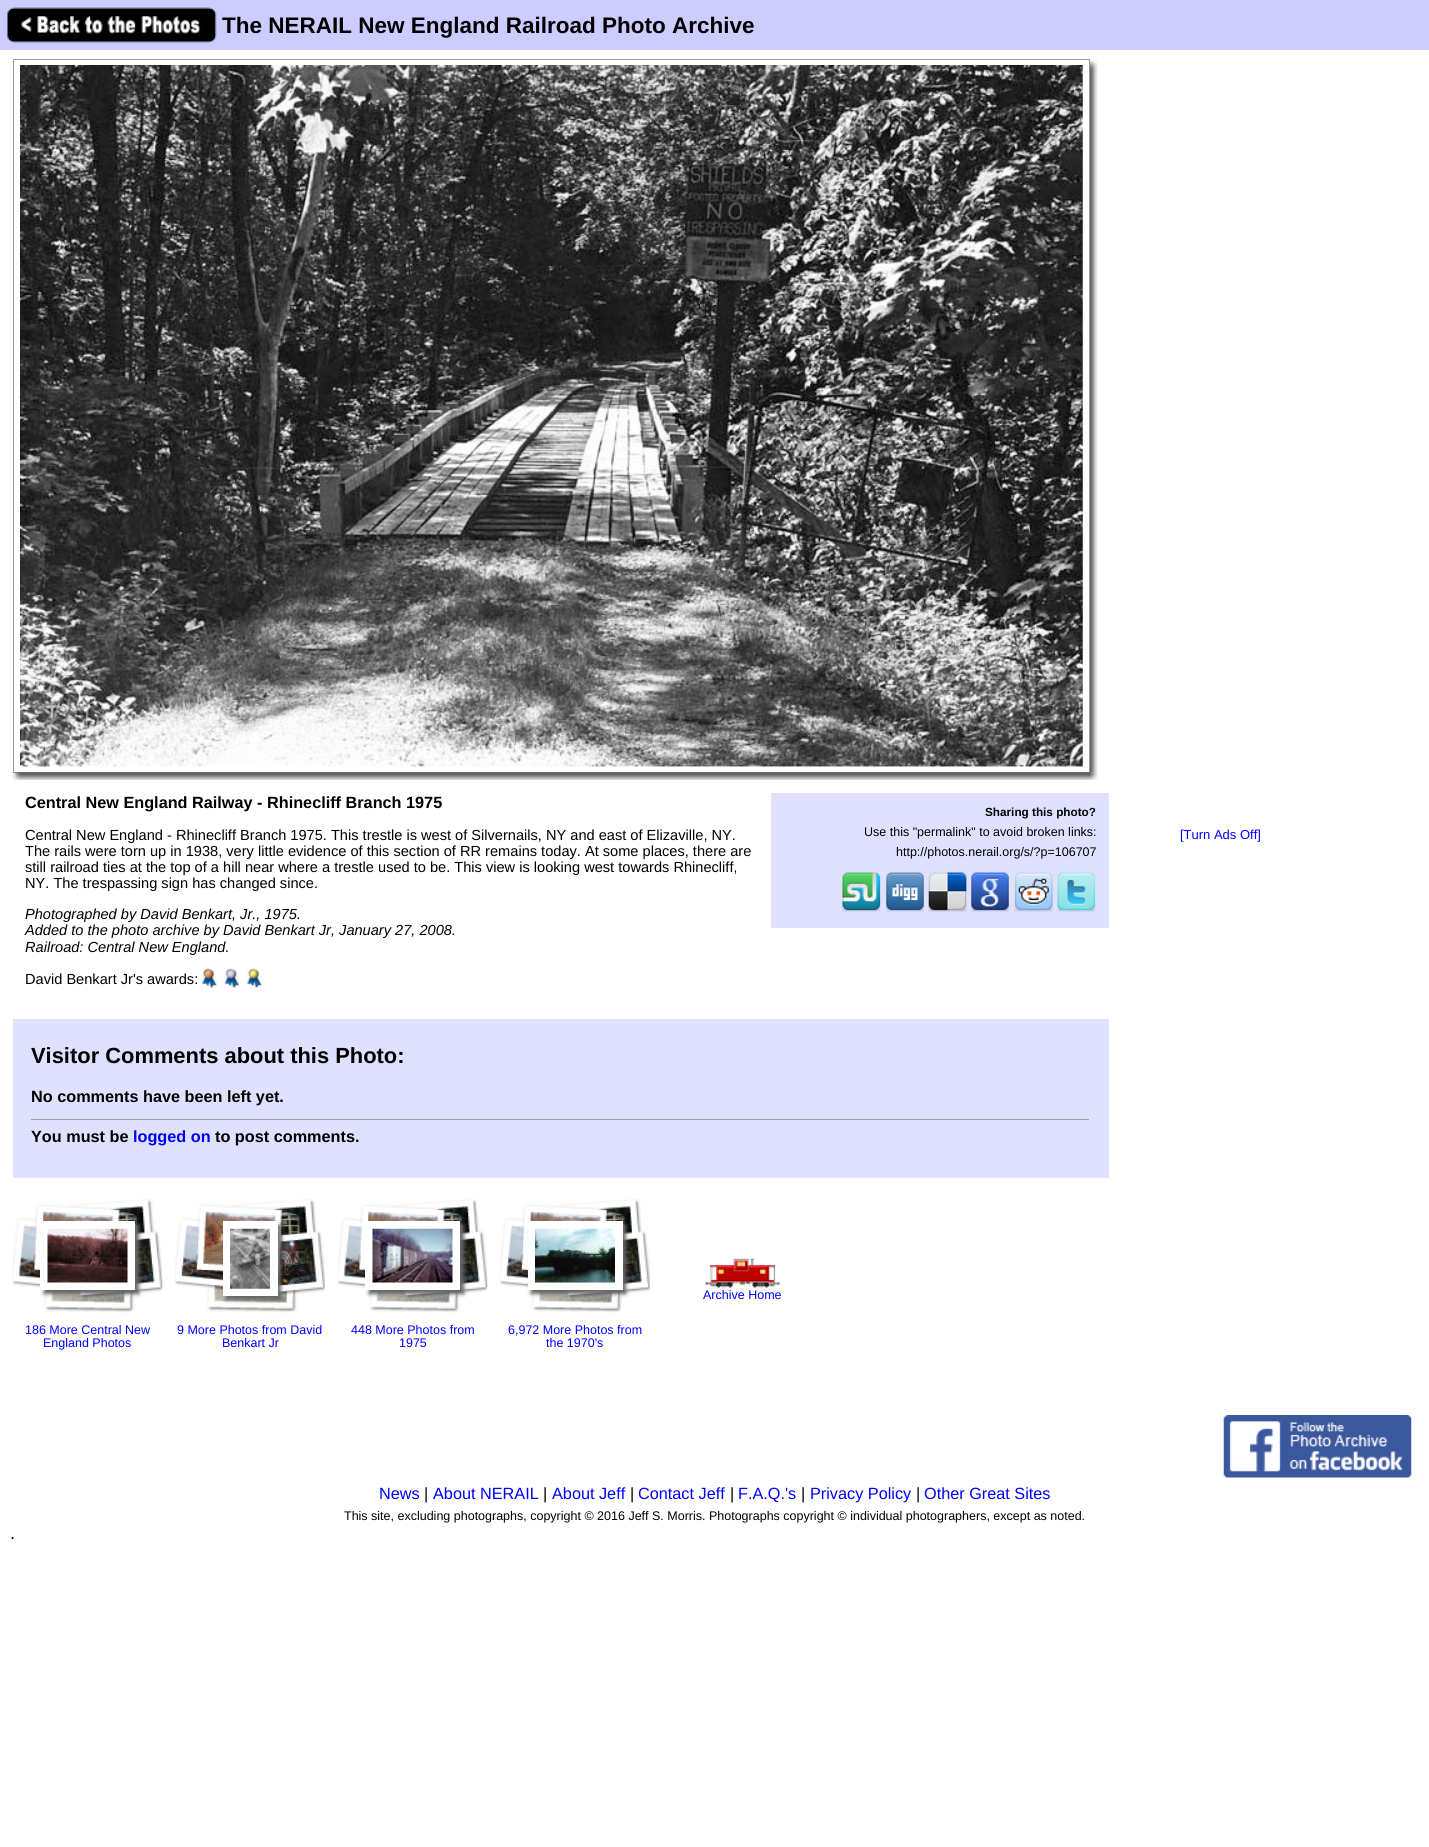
#include <cairo.h>
#include <math.h>
#include <stddef.h>

typedef struct { double x, y; const char *s; } line_t;

static void ink(cairo_t *ctx, unsigned color) {
    cairo_set_source_rgb(ctx, (color >> 16) / 255.0, (color >> 8 & 255) / 255.0, (color & 255) / 255.0);
}

static void round_path(cairo_t *ctx, double x, double y, double w, double h, double r) {
    cairo_new_sub_path(ctx);
    cairo_arc(ctx, x + w - r, y + h - r, r, 0, M_PI / 2);
    cairo_arc(ctx, x + r, y + h - r, r, M_PI / 2, M_PI);
    cairo_arc(ctx, x + r, y + r, r, M_PI, 1.5 * M_PI);
    cairo_arc(ctx, x + w - r, y + r, r, 1.5 * M_PI, 2 * M_PI);
    cairo_close_path(ctx);
}

static void blur_box(cairo_t *ctx, double x, double y, double w, double h, double r, double blur, double alpha) {
    cairo_push_group_with_content(ctx, CAIRO_CONTENT_ALPHA);
    cairo_set_operator(ctx, CAIRO_OPERATOR_SOURCE);
    for (int i = 15; i >= -15 && fmin(w, h) + blur * i / 3 > 0; i -= 2) {
        double e = blur * i / 6;
        cairo_set_source_rgba(ctx, 0, 0, 0, alpha * erfc((i - 1) / 8.5) / 2);
        round_path(ctx, x - e, y - e, w + 2 * e, h + 2 * e, fmax(0, fmin(r + e + blur * .6, fmin(w, h) / 2 + e)));
        cairo_fill(ctx);
    }
    cairo_pattern_t *soft = cairo_pop_group(ctx);
    cairo_mask(ctx, soft);
    cairo_pattern_destroy(soft);
}

static void paste(cairo_t *ctx, const char *path, double x, double y, double w, double h) {
    cairo_surface_t *image = cairo_image_surface_create_from_png(path);
    cairo_save(ctx);
    cairo_set_source_surface(ctx, image, x, y);
    cairo_rectangle(ctx, x, y, w, h);
    cairo_fill(ctx);
    cairo_restore(ctx);
    cairo_surface_destroy(image);
}

int main(void) {
    cairo_surface_t *surface = cairo_image_surface_create(CAIRO_FORMAT_RGB24, 1429, 1847);
    cairo_t *ctx = cairo_create(surface);
    cairo_font_options_t *options = cairo_font_options_create();
    cairo_font_options_set_hint_metrics(options, CAIRO_HINT_METRICS_OFF);
    cairo_font_options_set_hint_style(options, CAIRO_HINT_STYLE_NONE);
    cairo_set_font_options(ctx, options);
    cairo_set_miter_limit(ctx, 4);
    ink(ctx, 0xFFFFFF);
    cairo_paint(ctx);
    ink(ctx, 0xCCCCFF);
    cairo_rectangle(ctx, 0, 0, 1429, 50);
    cairo_fill(ctx);
    paste(ctx, "media/1.png", 7, 7, 210, 36);
    cairo_select_font_face(ctx, "Liberation Sans", CAIRO_FONT_SLANT_NORMAL, CAIRO_FONT_WEIGHT_BOLD);
    cairo_set_font_size(ctx, 22.5);
    ink(ctx, 0x000000);
    cairo_move_to(ctx, 222, 33);
    cairo_show_text(ctx, "The NERAIL New England Railroad Photo Archive");
    cairo_rectangle(ctx, 13.5, 59.5, 1076, 713);
    ink(ctx, 0x9A9A9A);
    cairo_set_line_width(ctx, 1);
    cairo_stroke(ctx);
    paste(ctx, "media/2.png", 20, 65, 1063, 702);
    paste(ctx, "media/3.png", 20, 65, 1063, 702);
    paste(ctx, "media/4.png", 1090, 59, 8, 714);
    paste(ctx, "media/5.png", 12, 772, 1078, 8);
    paste(ctx, "media/6.png", 1090, 772, 8, 8);
    cairo_set_font_size(ctx, 16.25);
    ink(ctx, 0x000000);
    cairo_move_to(ctx, 25, 808);
    cairo_show_text(ctx, "Central New England Railway - Rhinecliff Branch 1975");
    cairo_select_font_face(ctx, "Liberation Sans", CAIRO_FONT_SLANT_NORMAL, CAIRO_FONT_WEIGHT_NORMAL);
    cairo_set_font_size(ctx, 14.6);
    {
        static const line_t items[] = {
            {25, 840, "Central New England - Rhinecliff Branch 1975. This trestle is west of Silvernails, NY and east of Elizaville, NY."},
            {25, 856, "The rails were torn up in 1938, very little evidence of this section of RR remains today. At some places, there are"},
            {25, 872, "still railroad ties at the top of a hill near where a trestle used to be. This view is looking west towards Rhinecliff,"},
            {25, 888, "NY. The trespassing sign has changed since."},
        };
        for (size_t i = 0; i < sizeof items / sizeof *items; i++) {
            cairo_move_to(ctx, items[i].x, items[i].y);
            cairo_show_text(ctx, items[i].s);
        }
    }
    cairo_select_font_face(ctx, "Liberation Sans", CAIRO_FONT_SLANT_ITALIC, CAIRO_FONT_WEIGHT_NORMAL);
    {
        static const line_t items[] = {
            {25, 919, "Photographed by David Benkart, Jr., 1975."},
            {25, 935, "Added to the photo archive by David Benkart Jr, January 27, 2008."},
            {25, 952, "Railroad: Central New England."},
        };
        for (size_t i = 0; i < sizeof items / sizeof *items; i++) {
            cairo_move_to(ctx, items[i].x, items[i].y);
            cairo_show_text(ctx, items[i].s);
        }
    }
    cairo_select_font_face(ctx, "Liberation Sans", CAIRO_FONT_SLANT_NORMAL, CAIRO_FONT_WEIGHT_NORMAL);
    cairo_move_to(ctx, 25, 984);
    cairo_show_text(ctx, "David Benkart Jr's awards:");
    paste(ctx, "media/7.png", 202, 968, 15, 20);
    paste(ctx, "media/8.png", 224, 968, 15, 20);
    paste(ctx, "media/9.png", 247, 968, 15, 20);
    ink(ctx, 0xE0E0FF);
    cairo_rectangle(ctx, 771, 793, 338, 135);
    cairo_fill(ctx);
    cairo_select_font_face(ctx, "Liberation Sans", CAIRO_FONT_SLANT_NORMAL, CAIRO_FONT_WEIGHT_BOLD);
    cairo_set_font_size(ctx, 11.75);
    ink(ctx, 0x000000);
    cairo_move_to(ctx, 985, 816);
    cairo_show_text(ctx, "Sharing this photo?");
    cairo_select_font_face(ctx, "Liberation Sans", CAIRO_FONT_SLANT_NORMAL, CAIRO_FONT_WEIGHT_NORMAL);
    cairo_set_font_size(ctx, 12.5);
    cairo_move_to(ctx, 864, 836);
    cairo_show_text(ctx, "Use this \"permalink\" to avoid broken links:");
    cairo_move_to(ctx, 896, 856);
    cairo_show_text(ctx, "http://photos.nerail.org/s/?p=106707");
    paste(ctx, "media/10.png", 842, 872, 39, 40);
    paste(ctx, "media/11.png", 886, 872, 38, 40);
    paste(ctx, "media/12.png", 928, 872, 39, 40);
    paste(ctx, "media/13.png", 971, 872, 38, 40);
    paste(ctx, "media/14.png", 1014, 872, 39, 40);
    paste(ctx, "media/15.png", 1057, 872, 39, 40);
    cairo_set_font_size(ctx, 13);
    ink(ctx, 0x0000FF);
    cairo_move_to(ctx, 1180, 839);
    cairo_show_text(ctx, "[Turn Ads Off]");
    ink(ctx, 0xE0E0FF);
    cairo_rectangle(ctx, 13, 1019, 1096, 159);
    cairo_fill(ctx);
    cairo_select_font_face(ctx, "Liberation Sans", CAIRO_FONT_SLANT_NORMAL, CAIRO_FONT_WEIGHT_BOLD);
    cairo_set_font_size(ctx, 21.9);
    ink(ctx, 0x000000);
    cairo_move_to(ctx, 31, 1063);
    cairo_show_text(ctx, "Visitor Comments about this Photo:");
    cairo_set_font_size(ctx, 16.25);
    cairo_move_to(ctx, 31, 1102);
    cairo_show_text(ctx, "No comments have been left yet.");
    ink(ctx, 0x9F9F9F);
    cairo_rectangle(ctx, 31, 1119, 1059, 1);
    cairo_fill(ctx);
    ink(ctx, 0xEEEEEE);
    cairo_rectangle(ctx, 1089, 1119, 1, 1);
    cairo_fill(ctx);
    ink(ctx, 0x000000);
    cairo_move_to(ctx, 31, 1142);
    cairo_show_text(ctx, "You must be");
    ink(ctx, 0x0000FF);
    cairo_move_to(ctx, 133, 1142);
    cairo_show_text(ctx, "logged on");
    ink(ctx, 0x000000);
    cairo_move_to(ctx, 215, 1142);
    cairo_show_text(ctx, "to post comments.");
    paste(ctx, "media/16.png", 705, 1258, 75, 30);
    cairo_select_font_face(ctx, "Liberation Sans", CAIRO_FONT_SLANT_NORMAL, CAIRO_FONT_WEIGHT_NORMAL);
    cairo_set_font_size(ctx, 12.5);
    ink(ctx, 0x0000FF);
    cairo_move_to(ctx, 703, 1299);
    cairo_show_text(ctx, "Archive Home");
    paste(ctx, "media/17.png", 12, 1199, 151, 114);
    ink(ctx, 0x666666);
    blur_box(ctx, 44, 1225, 95, 69, 0, 2, 1);
    ink(ctx, 0xFFFFFF);
    cairo_rectangle(ctx, 40, 1221, 95, 69);
    cairo_fill(ctx);
    paste(ctx, "media/18.png", 47, 1228, 81, 55);
    ink(ctx, 0x0000FF);
    cairo_move_to(ctx, 25, 1334);
    cairo_show_text(ctx, "186 More Central New");
    cairo_move_to(ctx, 43, 1347);
    cairo_show_text(ctx, "England Photos");
    paste(ctx, "media/19.png", 175, 1199, 150, 114);
    ink(ctx, 0x666666);
    blur_box(ctx, 226, 1225, 55, 75, 0, 2, 1);
    ink(ctx, 0xFFFFFF);
    cairo_rectangle(ctx, 223, 1221, 55, 75);
    cairo_fill(ctx);
    paste(ctx, "media/20.png", 230, 1228, 40, 61);
    ink(ctx, 0x0000FF);
    cairo_move_to(ctx, 177, 1334);
    cairo_show_text(ctx, "9 More Photos from David");
    cairo_move_to(ctx, 222, 1347);
    cairo_show_text(ctx, "Benkart Jr");
    paste(ctx, "media/21.png", 337, 1199, 151, 114);
    ink(ctx, 0x666666);
    blur_box(ctx, 369, 1225, 95, 69, 0, 2, 1);
    ink(ctx, 0xFFFFFF);
    cairo_rectangle(ctx, 365, 1221, 95, 69);
    cairo_fill(ctx);
    paste(ctx, "media/22.png", 372, 1228, 81, 55);
    ink(ctx, 0x0000FF);
    cairo_move_to(ctx, 351, 1334);
    cairo_show_text(ctx, "448 More Photos from");
    cairo_move_to(ctx, 399, 1347);
    cairo_show_text(ctx, "1975");
    paste(ctx, "media/23.png", 500, 1199, 150, 114);
    ink(ctx, 0x666666);
    blur_box(ctx, 531, 1225, 95, 69, 0, 2, 1);
    ink(ctx, 0xFFFFFF);
    cairo_rectangle(ctx, 528, 1221, 95, 69);
    cairo_fill(ctx);
    paste(ctx, "media/24.png", 535, 1228, 80, 55);
    ink(ctx, 0x0000FF);
    cairo_move_to(ctx, 508, 1334);
    cairo_show_text(ctx, "6,972 More Photos from");
    cairo_move_to(ctx, 546, 1347);
    cairo_show_text(ctx, "the 1970's");
    paste(ctx, "media/25.png", 1223, 1415, 189, 63);
    cairo_set_font_size(ctx, 16.25);
    cairo_move_to(ctx, 379, 1499);
    cairo_show_text(ctx, "News");
    ink(ctx, 0x000000);
    cairo_move_to(ctx, 424, 1499);
    cairo_show_text(ctx, "|");
    ink(ctx, 0x0000FF);
    cairo_move_to(ctx, 433, 1499);
    cairo_show_text(ctx, "About NERAIL");
    ink(ctx, 0x000000);
    cairo_move_to(ctx, 543, 1499);
    cairo_show_text(ctx, "|");
    ink(ctx, 0x0000FF);
    cairo_move_to(ctx, 552, 1499);
    cairo_show_text(ctx, "About Jeff");
    ink(ctx, 0x000000);
    cairo_move_to(ctx, 630, 1499);
    cairo_show_text(ctx, "|");
    ink(ctx, 0x0000FF);
    cairo_move_to(ctx, 638, 1499);
    cairo_show_text(ctx, "Contact Jeff");
    ink(ctx, 0x000000);
    cairo_move_to(ctx, 730, 1499);
    cairo_show_text(ctx, "|");
    ink(ctx, 0x0000FF);
    cairo_move_to(ctx, 738, 1499);
    cairo_show_text(ctx, "F.A.Q.'s");
    ink(ctx, 0x000000);
    cairo_move_to(ctx, 801, 1499);
    cairo_show_text(ctx, "|");
    ink(ctx, 0x0000FF);
    cairo_move_to(ctx, 810, 1499);
    cairo_show_text(ctx, "Privacy Policy");
    ink(ctx, 0x000000);
    cairo_move_to(ctx, 916, 1499);
    cairo_show_text(ctx, "|");
    ink(ctx, 0x0000FF);
    cairo_move_to(ctx, 924, 1499);
    cairo_show_text(ctx, "Other Great Sites");
    cairo_set_font_size(ctx, 12.5);
    ink(ctx, 0x000000);
    cairo_move_to(ctx, 344, 1520);
    cairo_show_text(ctx, "This site, excluding photographs, copyright © 2016 Jeff S. Morris. Photographs copyright © individual photographers, except as noted.");
    cairo_set_font_size(ctx, 18);
    cairo_move_to(ctx, 10, 1539);
    cairo_show_text(ctx, ".");
    cairo_surface_write_to_png(surface, "image.png");
    cairo_font_options_destroy(options);
    cairo_destroy(ctx);
    cairo_surface_destroy(surface);
    return 0;
}
